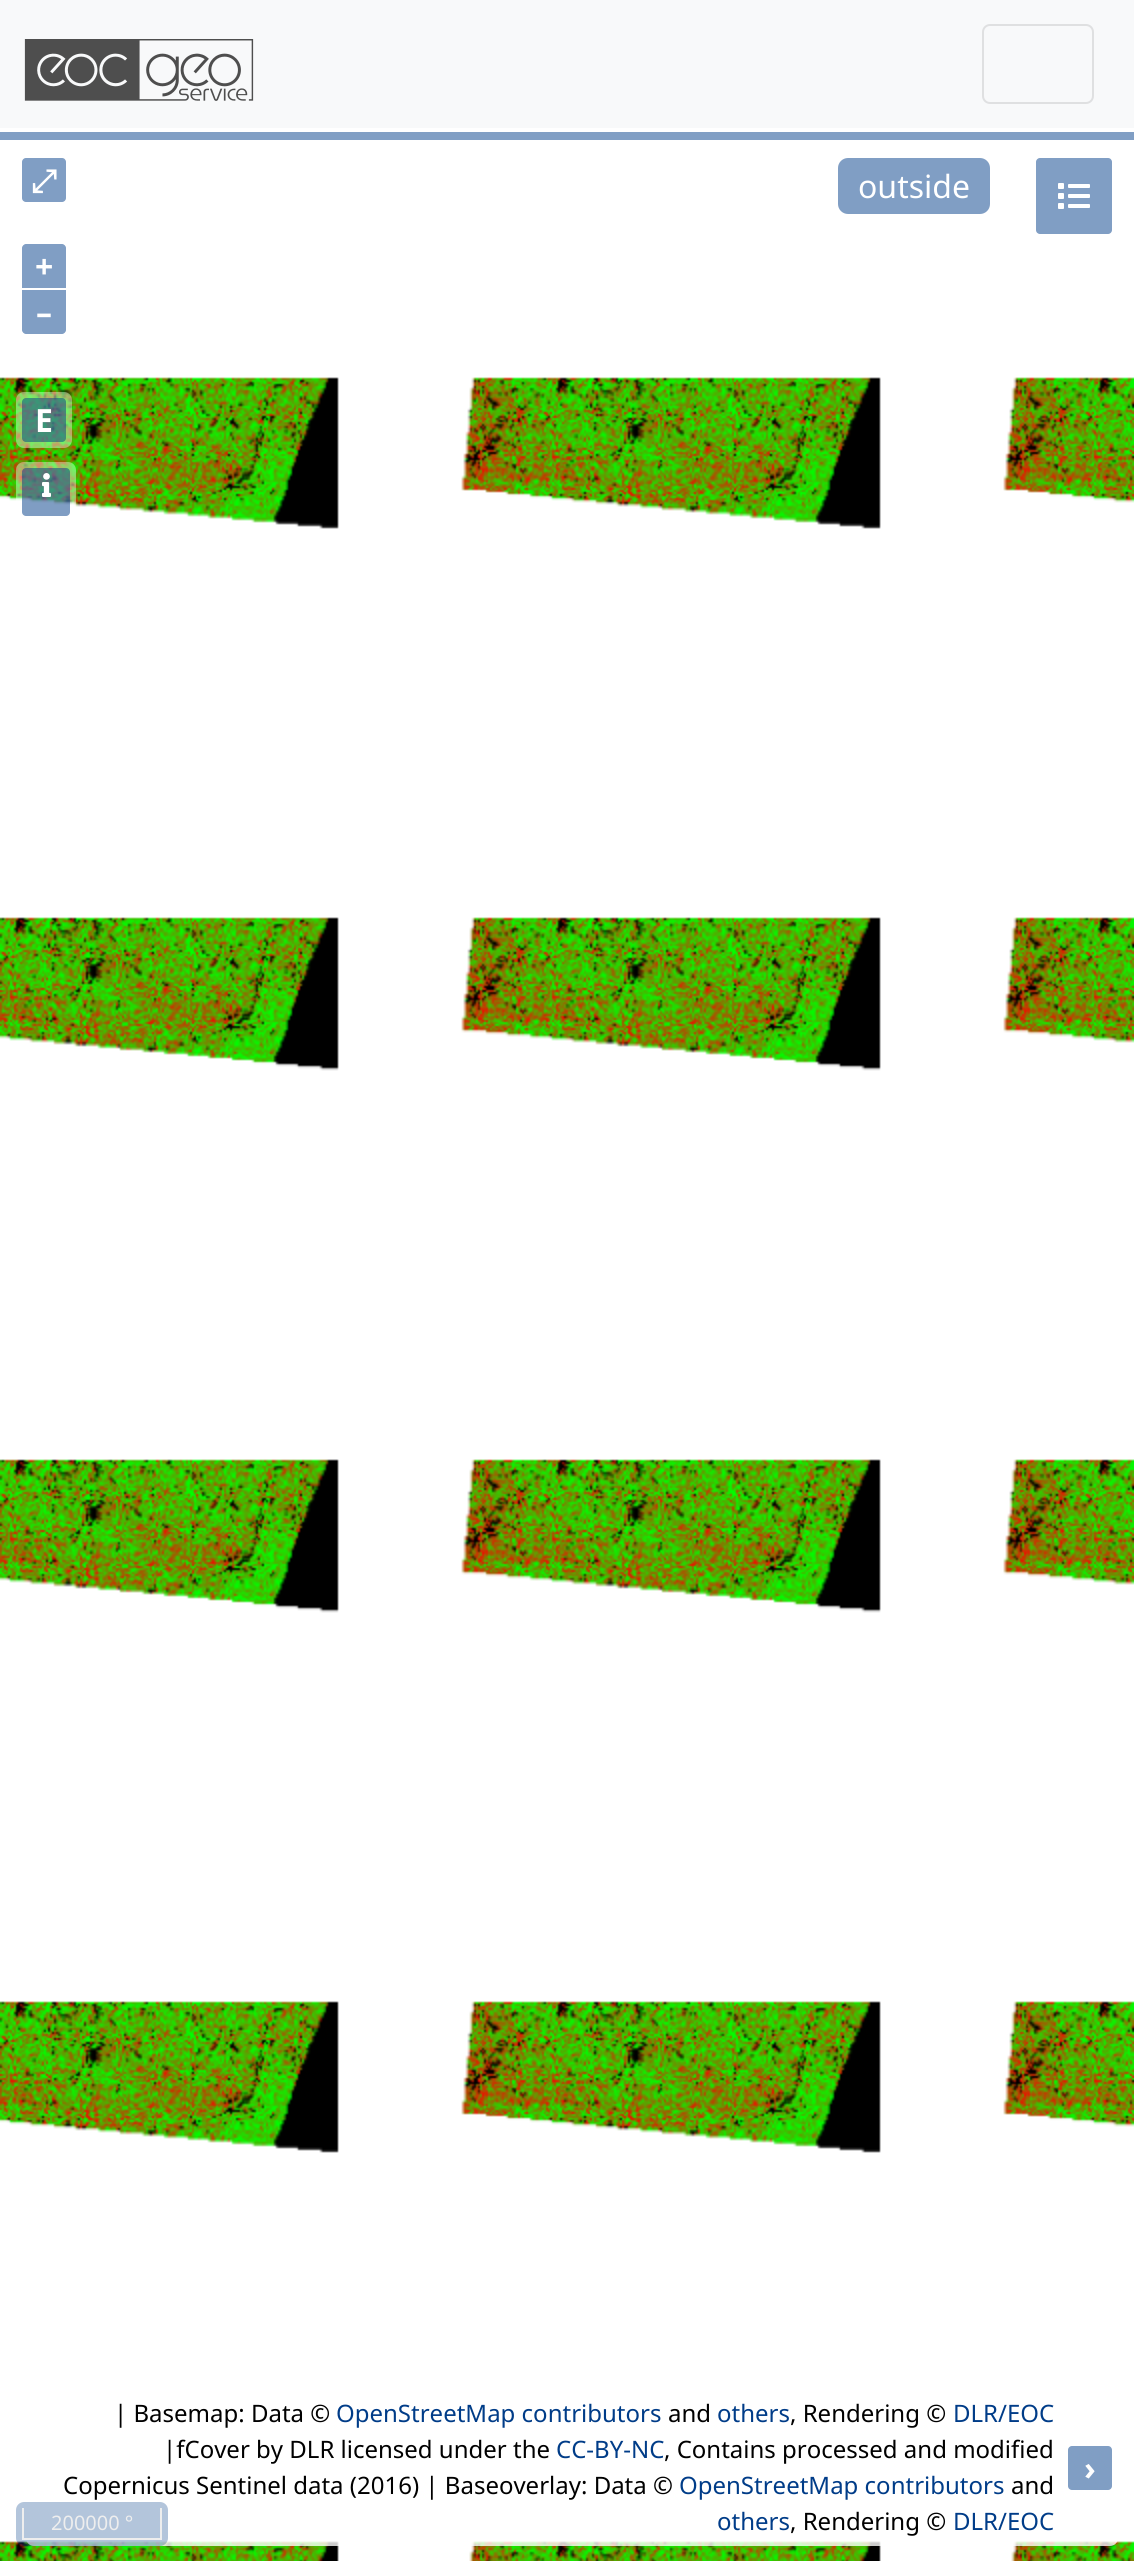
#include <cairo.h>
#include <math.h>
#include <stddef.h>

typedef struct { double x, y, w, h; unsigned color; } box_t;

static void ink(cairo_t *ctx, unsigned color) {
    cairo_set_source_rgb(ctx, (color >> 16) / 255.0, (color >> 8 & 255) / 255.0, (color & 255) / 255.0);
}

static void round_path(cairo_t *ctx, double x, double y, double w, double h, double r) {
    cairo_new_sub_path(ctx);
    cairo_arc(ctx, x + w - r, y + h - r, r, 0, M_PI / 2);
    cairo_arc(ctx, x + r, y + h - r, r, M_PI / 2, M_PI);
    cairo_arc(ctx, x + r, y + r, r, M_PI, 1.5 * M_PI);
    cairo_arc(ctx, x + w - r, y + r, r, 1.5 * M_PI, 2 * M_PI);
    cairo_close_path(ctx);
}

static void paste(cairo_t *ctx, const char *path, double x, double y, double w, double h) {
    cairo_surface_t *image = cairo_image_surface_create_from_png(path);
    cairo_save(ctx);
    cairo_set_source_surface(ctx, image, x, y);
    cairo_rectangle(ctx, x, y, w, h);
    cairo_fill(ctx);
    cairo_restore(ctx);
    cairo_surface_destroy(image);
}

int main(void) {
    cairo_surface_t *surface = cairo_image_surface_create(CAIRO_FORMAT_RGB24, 1134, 2561);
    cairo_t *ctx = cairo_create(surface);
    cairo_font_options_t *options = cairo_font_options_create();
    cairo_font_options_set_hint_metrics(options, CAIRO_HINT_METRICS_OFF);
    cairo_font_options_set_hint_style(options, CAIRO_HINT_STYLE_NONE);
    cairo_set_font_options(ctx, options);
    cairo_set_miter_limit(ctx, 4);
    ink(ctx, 0xFFFFFF);
    cairo_paint(ctx);
    ink(ctx, 0xF8F9FA);
    cairo_rectangle(ctx, 0, 0, 1134, 128);
    cairo_fill(ctx);
    paste(ctx, "media/1.png", 24, 39, 230, 62);
    round_path(ctx, 983, 25, 110, 78, 7);
    ink(ctx, 0xDFE0E1);
    cairo_stroke(ctx);
    ink(ctx, 0x809EC4);
    cairo_rectangle(ctx, 0, 132, 1134, 8);
    cairo_fill(ctx);
    round_path(ctx, 22, 158, 44, 44, 4);
    cairo_fill(ctx);
    cairo_select_font_face(ctx, "FreeSerif", CAIRO_FONT_SLANT_NORMAL, CAIRO_FONT_WEIGHT_BOLD);
    cairo_set_font_size(ctx, 32);
    ink(ctx, 0xFFFFFF);
    cairo_move_to(ctx, 31, 192);
    cairo_show_text(ctx, "⤢");
    ink(ctx, 0x809EC4);
    round_path(ctx, 838, 158, 152, 56, 10);
    cairo_fill(ctx);
    cairo_select_font_face(ctx, "Noto Sans", CAIRO_FONT_SLANT_NORMAL, CAIRO_FONT_WEIGHT_NORMAL);
    ink(ctx, 0xFFFFFF);
    cairo_move_to(ctx, 858, 198);
    cairo_show_text(ctx, "outside");
    ink(ctx, 0x809EC4);
    round_path(ctx, 1036, 158, 76, 76, 4);
    cairo_fill(ctx);
    paste(ctx, "media/2.png", 1058, 183, 32, 26);
    cairo_new_path(ctx);
    cairo_move_to(ctx, 26, 244);
    cairo_line_to(ctx, 62, 244);
    cairo_curve_to(ctx, 64, 244, 66, 246, 66, 248);
    cairo_line_to(ctx, 66, 288);
    cairo_line_to(ctx, 22, 288);
    cairo_line_to(ctx, 22, 248);
    cairo_curve_to(ctx, 22, 246, 24, 244, 26, 244);
    cairo_close_path(ctx);
    cairo_fill(ctx);
    cairo_select_font_face(ctx, "Noto Sans", CAIRO_FONT_SLANT_NORMAL, CAIRO_FONT_WEIGHT_BOLD);
    ink(ctx, 0xFFFFFF);
    cairo_move_to(ctx, 35, 278);
    cairo_show_text(ctx, "+");
    ink(ctx, 0x809EC4);
    cairo_new_path(ctx);
    cairo_move_to(ctx, 22, 290);
    cairo_line_to(ctx, 66, 290);
    cairo_line_to(ctx, 66, 330);
    cairo_curve_to(ctx, 66, 332, 64, 334, 62, 334);
    cairo_line_to(ctx, 26, 334);
    cairo_curve_to(ctx, 24, 334, 22, 332, 22, 330);
    cairo_close_path(ctx);
    cairo_fill(ctx);
    ink(ctx, 0xFFFFFF);
    cairo_move_to(ctx, 36, 324);
    cairo_show_text(ctx, "–");
    paste(ctx, "media/4.png", 0, 377, 1134, 2184);
    cairo_set_source_rgba(ctx, 1, 1, 1, 0.4);
    round_path(ctx, 16, 392, 56, 56, 8);
    cairo_fill(ctx);
    cairo_set_source_rgba(ctx, 0, 0.235, 0.533, 0.5);
    round_path(ctx, 22, 398, 44, 44, 4);
    cairo_fill(ctx);
    ink(ctx, 0xFFFFFF);
    cairo_move_to(ctx, 35, 432);
    cairo_show_text(ctx, "E");
    cairo_set_source_rgba(ctx, 1, 1, 1, 0.4);
    round_path(ctx, 16, 462, 60, 60, 8);
    cairo_fill(ctx);
    cairo_set_source_rgba(ctx, 0, 0.235, 0.533, 0.5);
    round_path(ctx, 22, 468, 48, 48, 4);
    cairo_fill(ctx);
    paste(ctx, "media/3.png", 42, 473, 9, 24);
    cairo_set_source_rgba(ctx, 1, 1, 1, 0.8);
    round_path(ctx, 26, 2390, 1092, 156, 8);
    cairo_fill(ctx);
    cairo_select_font_face(ctx, "Noto Sans", CAIRO_FONT_SLANT_NORMAL, CAIRO_FONT_WEIGHT_NORMAL);
    cairo_set_font_size(ctx, 24);
    ink(ctx, 0x000000);
    cairo_move_to(ctx, 114, 2422);
    cairo_show_text(ctx, "| Basemap: Data ©");
    ink(ctx, 0x003C88);
    cairo_move_to(ctx, 336, 2422);
    cairo_show_text(ctx, "OpenStreetMap contributors");
    ink(ctx, 0x000000);
    cairo_move_to(ctx, 668, 2422);
    cairo_show_text(ctx, "and");
    ink(ctx, 0x003C88);
    cairo_move_to(ctx, 717, 2422);
    cairo_show_text(ctx, "others");
    ink(ctx, 0x000000);
    cairo_move_to(ctx, 790, 2422);
    cairo_show_text(ctx, ", Rendering ©");
    ink(ctx, 0x003C88);
    cairo_move_to(ctx, 953, 2422);
    cairo_show_text(ctx, "DLR/EOC");
    ink(ctx, 0x000000);
    cairo_move_to(ctx, 163, 2458);
    cairo_show_text(ctx, "|fCover by DLR licensed under the");
    ink(ctx, 0x003C88);
    cairo_move_to(ctx, 556, 2458);
    cairo_show_text(ctx, "CC-BY-NC");
    ink(ctx, 0x000000);
    cairo_move_to(ctx, 664, 2458);
    cairo_show_text(ctx, ", Contains processed and modified");
    cairo_move_to(ctx, 63, 2494);
    cairo_show_text(ctx, "Copernicus Sentinel data (2016) | Baseoverlay: Data ©");
    ink(ctx, 0x003C88);
    cairo_move_to(ctx, 679, 2494);
    cairo_show_text(ctx, "OpenStreetMap contributors");
    ink(ctx, 0x000000);
    cairo_move_to(ctx, 1011, 2494);
    cairo_show_text(ctx, "and");
    ink(ctx, 0x003C88);
    cairo_move_to(ctx, 717, 2530);
    cairo_show_text(ctx, "others");
    ink(ctx, 0x000000);
    cairo_move_to(ctx, 790, 2530);
    cairo_show_text(ctx, ", Rendering ©");
    ink(ctx, 0x003C88);
    cairo_move_to(ctx, 953, 2530);
    cairo_show_text(ctx, "DLR/EOC");
    ink(ctx, 0x809EC4);
    round_path(ctx, 1068, 2446, 44, 44, 4);
    cairo_fill(ctx);
    cairo_select_font_face(ctx, "Noto Sans", CAIRO_FONT_SLANT_NORMAL, CAIRO_FONT_WEIGHT_BOLD);
    cairo_set_font_size(ctx, 32);
    ink(ctx, 0xFFFFFF);
    cairo_move_to(ctx, 1084, 2480);
    cairo_show_text(ctx, "›");
    cairo_set_source_rgba(ctx, 0, 0.235, 0.533, 0.3);
    round_path(ctx, 16, 2502, 152, 44, 8);
    cairo_fill(ctx);
    {
        static const box_t items[] = {
            {160, 2508, 2, 32, 0xEEEEEE},
            {22, 2538, 140, 2, 0xEEEEEE},
            {22, 2508, 2, 32, 0xEEEEEE},
        };
        for (size_t i = 0; i < sizeof items / sizeof *items; i++) {
            ink(ctx, items[i].color);
            cairo_rectangle(ctx, items[i].x, items[i].y, items[i].w, items[i].h);
            cairo_fill(ctx);
        }
    }
    cairo_select_font_face(ctx, "Noto Sans", CAIRO_FONT_SLANT_NORMAL, CAIRO_FONT_WEIGHT_NORMAL);
    cairo_set_font_size(ctx, 20);
    cairo_move_to(ctx, 51, 2530);
    cairo_show_text(ctx, "200000 °");
    cairo_surface_write_to_png(surface, "image.png");
    cairo_font_options_destroy(options);
    cairo_destroy(ctx);
    cairo_surface_destroy(surface);
    return 0;
}
